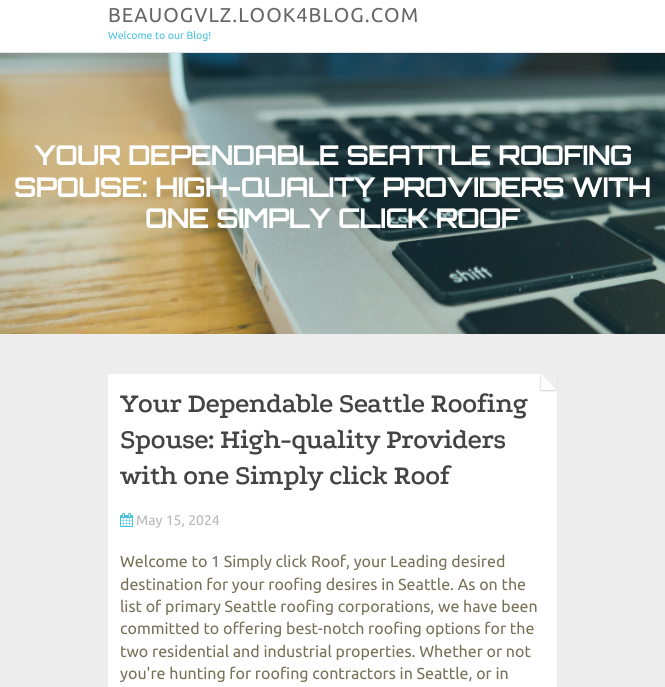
#include <cairo.h>
#include <math.h>
#include <stddef.h>

typedef struct { double x, y; const char *s; } line_t;

static void ink(cairo_t *ctx, unsigned color) {
    cairo_set_source_rgb(ctx, (color >> 16) / 255.0, (color >> 8 & 255) / 255.0, (color & 255) / 255.0);
}

static void write_spaced(cairo_t *ctx, double x, double y, const char *s, double letter, double word) {
    cairo_move_to(ctx, x, y);
    while (*s) {
        char ch[5] = {0};
        int n = 0;
        do ch[n++] = *s++; while ((*s & 0xC0) == 0x80);
        cairo_show_text(ctx, ch);
        cairo_rel_move_to(ctx, letter + word * (*ch == ' '), 0);
    }
}

static void round_path(cairo_t *ctx, double x, double y, double w, double h, double r) {
    cairo_new_sub_path(ctx);
    cairo_arc(ctx, x + w - r, y + h - r, r, 0, M_PI / 2);
    cairo_arc(ctx, x + r, y + h - r, r, M_PI / 2, M_PI);
    cairo_arc(ctx, x + r, y + r, r, M_PI, 1.5 * M_PI);
    cairo_arc(ctx, x + w - r, y + r, r, 1.5 * M_PI, 2 * M_PI);
    cairo_close_path(ctx);
}

static void blur_box(cairo_t *ctx, double x, double y, double w, double h, double r, double blur, double alpha) {
    cairo_push_group_with_content(ctx, CAIRO_CONTENT_ALPHA);
    cairo_set_operator(ctx, CAIRO_OPERATOR_SOURCE);
    for (int i = 15; i >= -15 && fmin(w, h) + blur * i / 3 > 0; i -= 2) {
        double e = blur * i / 6;
        cairo_set_source_rgba(ctx, 0, 0, 0, alpha * erfc((i - 1) / 8.5) / 2);
        round_path(ctx, x - e, y - e, w + 2 * e, h + 2 * e, fmax(0, fmin(r + e + blur * .6, fmin(w, h) / 2 + e)));
        cairo_fill(ctx);
    }
    cairo_pattern_t *soft = cairo_pop_group(ctx);
    cairo_mask(ctx, soft);
    cairo_pattern_destroy(soft);
}

static void paste(cairo_t *ctx, const char *path, double x, double y, double w, double h) {
    cairo_surface_t *image = cairo_image_surface_create_from_png(path);
    cairo_save(ctx);
    cairo_set_source_surface(ctx, image, x, y);
    cairo_rectangle(ctx, x, y, w, h);
    cairo_fill(ctx);
    cairo_restore(ctx);
    cairo_surface_destroy(image);
}

int main(void) {
    cairo_surface_t *surface = cairo_image_surface_create(CAIRO_FORMAT_RGB24, 665, 687);
    cairo_t *ctx = cairo_create(surface);
    cairo_font_options_t *options = cairo_font_options_create();
    cairo_font_options_set_hint_metrics(options, CAIRO_HINT_METRICS_OFF);
    cairo_font_options_set_hint_style(options, CAIRO_HINT_STYLE_NONE);
    cairo_set_font_options(ctx, options);
    cairo_set_miter_limit(ctx, 4);
    ink(ctx, 0xEDEDED);
    cairo_paint(ctx);
    ink(ctx, 0xFFFFFF);
    cairo_rectangle(ctx, 0, 0, 665, 52);
    cairo_fill(ctx);
    ink(ctx, 0xE6E6E6);
    cairo_rectangle(ctx, 0, 52, 665, 1);
    cairo_fill(ctx);
    cairo_select_font_face(ctx, "Ubuntu", CAIRO_FONT_SLANT_NORMAL, CAIRO_FONT_WEIGHT_NORMAL);
    cairo_set_font_size(ctx, 20);
    ink(ctx, 0x666666);
    write_spaced(ctx, 108, 22, "BEAUOGVLZ.LOOK4BLOG.COM", 1, 0);
    cairo_set_font_size(ctx, 10.5);
    ink(ctx, 0x47C2DC);
    cairo_move_to(ctx, 108, 39);
    cairo_show_text(ctx, "Welcome to our Blog!");
    paste(ctx, "media/1.png", 0, 53, 665, 281);
    cairo_select_font_face(ctx, "Orbitron", CAIRO_FONT_SLANT_NORMAL, CAIRO_FONT_WEIGHT_BOLD);
    cairo_set_font_size(ctx, 26.25);
    ink(ctx, 0xFFFFFF);
    {
        static const line_t items[] = {
            {34, 165, "YOUR DEPENDABLE SEATTLE ROOFING"},
            {14, 197, "SPOUSE: HIGH-QUALITY PROVIDERS WITH"},
            {145, 228, "ONE SIMPLY CLICK ROOF"},
        };
        for (size_t i = 0; i < sizeof items / sizeof *items; i++) {
            cairo_move_to(ctx, items[i].x, items[i].y);
            cairo_show_text(ctx, items[i].s);
        }
    }
    cairo_rectangle(ctx, 108, 374, 449, 313);
    cairo_fill(ctx);
    ink(ctx, 0x000000);
    blur_box(ctx, 540, 375, 16, 16, 0, 0.5, 0.08);
    blur_box(ctx, 541, 375, 16, 16, 0, 0.5, 0.08);
    ink(ctx, 0xEEEEEE);
    cairo_new_path(ctx);
    cairo_move_to(ctx, 557, 374);
    cairo_line_to(ctx, 557, 390);
    cairo_line_to(ctx, 541, 374);
    cairo_close_path(ctx);
    cairo_fill(ctx);
    ink(ctx, 0xFFFFFF);
    cairo_new_path(ctx);
    cairo_move_to(ctx, 557, 390);
    cairo_line_to(ctx, 541, 390);
    cairo_line_to(ctx, 541, 374);
    cairo_close_path(ctx);
    cairo_fill(ctx);
    cairo_select_font_face(ctx, "Podkova SemiBold", CAIRO_FONT_SLANT_NORMAL, CAIRO_FONT_WEIGHT_NORMAL);
    cairo_set_font_size(ctx, 28);
    ink(ctx, 0x444444);
    {
        static const line_t items[] = {
            {120, 412, "Your Dependable Seattle Roofing"},
            {120, 448, "Spouse: High-quality Providers"},
            {120, 484, "with one Simply click Roof"},
        };
        for (size_t i = 0; i < sizeof items / sizeof *items; i++) {
            write_spaced(ctx, items[i].x, items[i].y, items[i].s, -0.6, 0);
        }
    }
    paste(ctx, "media/2.png", 120, 513, 13, 14);
    cairo_select_font_face(ctx, "Ubuntu", CAIRO_FONT_SLANT_NORMAL, CAIRO_FONT_WEIGHT_NORMAL);
    cairo_set_font_size(ctx, 14);
    ink(ctx, 0xB7B7B7);
    cairo_move_to(ctx, 136, 525);
    cairo_show_text(ctx, "May 15, 2024");
    cairo_set_font_size(ctx, 16);
    ink(ctx, 0x777158);
    {
        static const line_t items[] = {
            {120, 567, "Welcome to 1 Simply click Roof, your Leading desired"},
            {120, 590, "destination for your roofing desires in Seattle. As on the"},
            {120, 612, "list of primary Seattle roofing corporations, we have been"},
            {120, 634, "committed to offering best-notch roofing options for the"},
            {120, 657, "two residential and industrial properties. Whether or not"},
            {120, 679, "you're hunting for roofing contractors in Seattle, or in"},
        };
        for (size_t i = 0; i < sizeof items / sizeof *items; i++) {
            cairo_move_to(ctx, items[i].x, items[i].y);
            cairo_show_text(ctx, items[i].s);
        }
    }
    cairo_surface_write_to_png(surface, "image.png");
    cairo_font_options_destroy(options);
    cairo_destroy(ctx);
    cairo_surface_destroy(surface);
    return 0;
}
